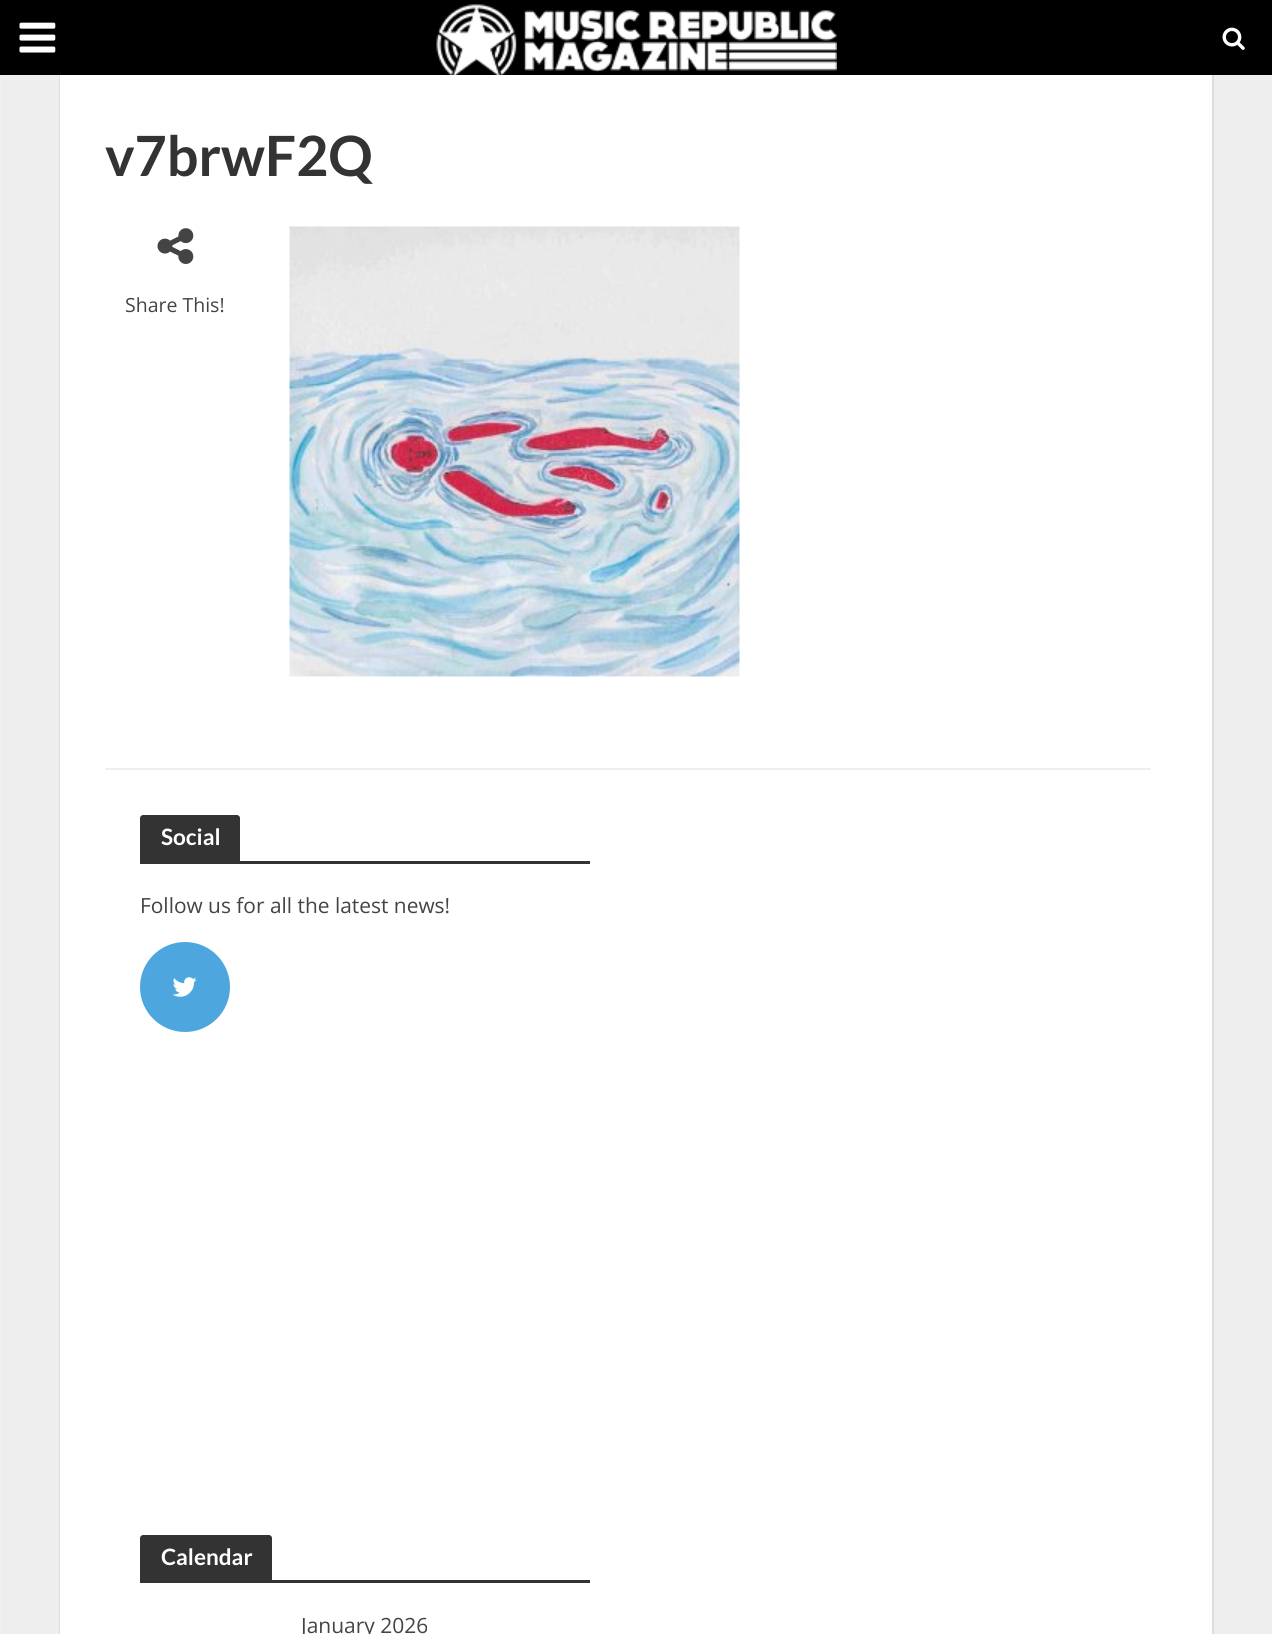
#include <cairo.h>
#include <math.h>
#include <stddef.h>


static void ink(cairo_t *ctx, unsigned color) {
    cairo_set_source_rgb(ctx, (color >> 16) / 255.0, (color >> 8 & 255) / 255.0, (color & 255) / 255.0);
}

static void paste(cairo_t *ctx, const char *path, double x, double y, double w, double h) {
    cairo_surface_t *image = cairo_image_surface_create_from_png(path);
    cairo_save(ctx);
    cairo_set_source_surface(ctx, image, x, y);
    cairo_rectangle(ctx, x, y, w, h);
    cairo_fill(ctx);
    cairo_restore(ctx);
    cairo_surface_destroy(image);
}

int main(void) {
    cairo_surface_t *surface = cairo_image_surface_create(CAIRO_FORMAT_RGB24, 1272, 1634);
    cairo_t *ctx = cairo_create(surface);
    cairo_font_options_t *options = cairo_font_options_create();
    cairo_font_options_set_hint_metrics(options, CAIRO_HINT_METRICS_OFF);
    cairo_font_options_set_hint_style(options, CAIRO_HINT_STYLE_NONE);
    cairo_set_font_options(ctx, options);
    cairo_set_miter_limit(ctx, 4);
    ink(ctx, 0xEEEEEE);
    cairo_paint(ctx);
    cairo_rectangle(ctx, 60, 75, 1153, 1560);
    ink(ctx, 0xDDDDDD);
    cairo_stroke(ctx);
    ink(ctx, 0x000000);
    cairo_rectangle(ctx, 0, 0, 1272, 75);
    cairo_fill(ctx);
    paste(ctx, "media/1.png", 19, 22, 37, 31);
    paste(ctx, "media/2.png", 436, 4, 401, 71);
    paste(ctx, "media/3.png", 1222, 27, 23, 23);
    ink(ctx, 0xF1F1F1);
    cairo_rectangle(ctx, 0, 75, 1, 1559);
    cairo_fill(ctx);
    ink(ctx, 0xFFFFFF);
    cairo_rectangle(ctx, 60, 75, 1152, 1559);
    cairo_fill(ctx);
    cairo_select_font_face(ctx, "Lato", CAIRO_FONT_SLANT_NORMAL, CAIRO_FONT_WEIGHT_BOLD);
    cairo_set_font_size(ctx, 55.5);
    ink(ctx, 0x333333);
    cairo_move_to(ctx, 105, 176);
    cairo_show_text(ctx, "v7brwF2Q");
    paste(ctx, "media/4.png", 157, 228, 37, 36);
    cairo_select_font_face(ctx, "Open Sans", CAIRO_FONT_SLANT_NORMAL, CAIRO_FONT_WEIGHT_NORMAL);
    cairo_set_font_size(ctx, 19.5);
    ink(ctx, 0x444444);
    cairo_move_to(ctx, 125, 312);
    cairo_show_text(ctx, "Share This!");
    paste(ctx, "media/5.png", 289, 226, 451, 451);
    ink(ctx, 0xEEEEEE);
    cairo_rectangle(ctx, 105, 768, 1046, 2);
    cairo_fill(ctx);
    ink(ctx, 0x333333);
    cairo_new_path(ctx);
    cairo_move_to(ctx, 143, 815);
    cairo_line_to(ctx, 237, 815);
    cairo_curve_to(ctx, 238.5, 815, 240, 816.5, 240, 818);
    cairo_line_to(ctx, 240, 861);
    cairo_line_to(ctx, 140, 861);
    cairo_line_to(ctx, 140, 818);
    cairo_curve_to(ctx, 140, 816.5, 141.5, 815, 143, 815);
    cairo_close_path(ctx);
    cairo_fill(ctx);
    cairo_select_font_face(ctx, "Lato", CAIRO_FONT_SLANT_NORMAL, CAIRO_FONT_WEIGHT_BOLD);
    cairo_set_font_size(ctx, 22.5);
    ink(ctx, 0xFFFFFF);
    cairo_move_to(ctx, 161, 845);
    cairo_show_text(ctx, "Social");
    ink(ctx, 0x333333);
    cairo_rectangle(ctx, 140, 861, 450, 3);
    cairo_fill(ctx);
    cairo_select_font_face(ctx, "Open Sans", CAIRO_FONT_SLANT_NORMAL, CAIRO_FONT_WEIGHT_NORMAL);
    cairo_set_font_size(ctx, 20.9);
    ink(ctx, 0x444444);
    cairo_move_to(ctx, 140, 913);
    cairo_show_text(ctx, "Follow us for all the latest news!");
    ink(ctx, 0x4DA7DE);
    cairo_new_path(ctx);
    cairo_arc(ctx, 185, 987, 45, 0, 2 * M_PI);
    cairo_fill(ctx);
    paste(ctx, "media/6.png", 172, 977, 25, 20);
    ink(ctx, 0x333333);
    cairo_new_path(ctx);
    cairo_move_to(ctx, 143, 1535);
    cairo_line_to(ctx, 269, 1535);
    cairo_curve_to(ctx, 270.5, 1535, 272, 1536.5, 272, 1538);
    cairo_line_to(ctx, 272, 1580);
    cairo_line_to(ctx, 140, 1580);
    cairo_line_to(ctx, 140, 1538);
    cairo_curve_to(ctx, 140, 1536.5, 141.5, 1535, 143, 1535);
    cairo_close_path(ctx);
    cairo_fill(ctx);
    cairo_select_font_face(ctx, "Lato", CAIRO_FONT_SLANT_NORMAL, CAIRO_FONT_WEIGHT_BOLD);
    cairo_set_font_size(ctx, 22.5);
    ink(ctx, 0xFFFFFF);
    cairo_move_to(ctx, 161, 1565);
    cairo_show_text(ctx, "Calendar");
    ink(ctx, 0x333333);
    cairo_rectangle(ctx, 140, 1580, 450, 3);
    cairo_fill(ctx);
    cairo_select_font_face(ctx, "Open Sans", CAIRO_FONT_SLANT_NORMAL, CAIRO_FONT_WEIGHT_NORMAL);
    cairo_set_font_size(ctx, 21);
    ink(ctx, 0x444444);
    cairo_move_to(ctx, 301, 1633);
    cairo_show_text(ctx, "January 2026");
    cairo_surface_write_to_png(surface, "image.png");
    cairo_font_options_destroy(options);
    cairo_destroy(ctx);
    cairo_surface_destroy(surface);
    return 0;
}
